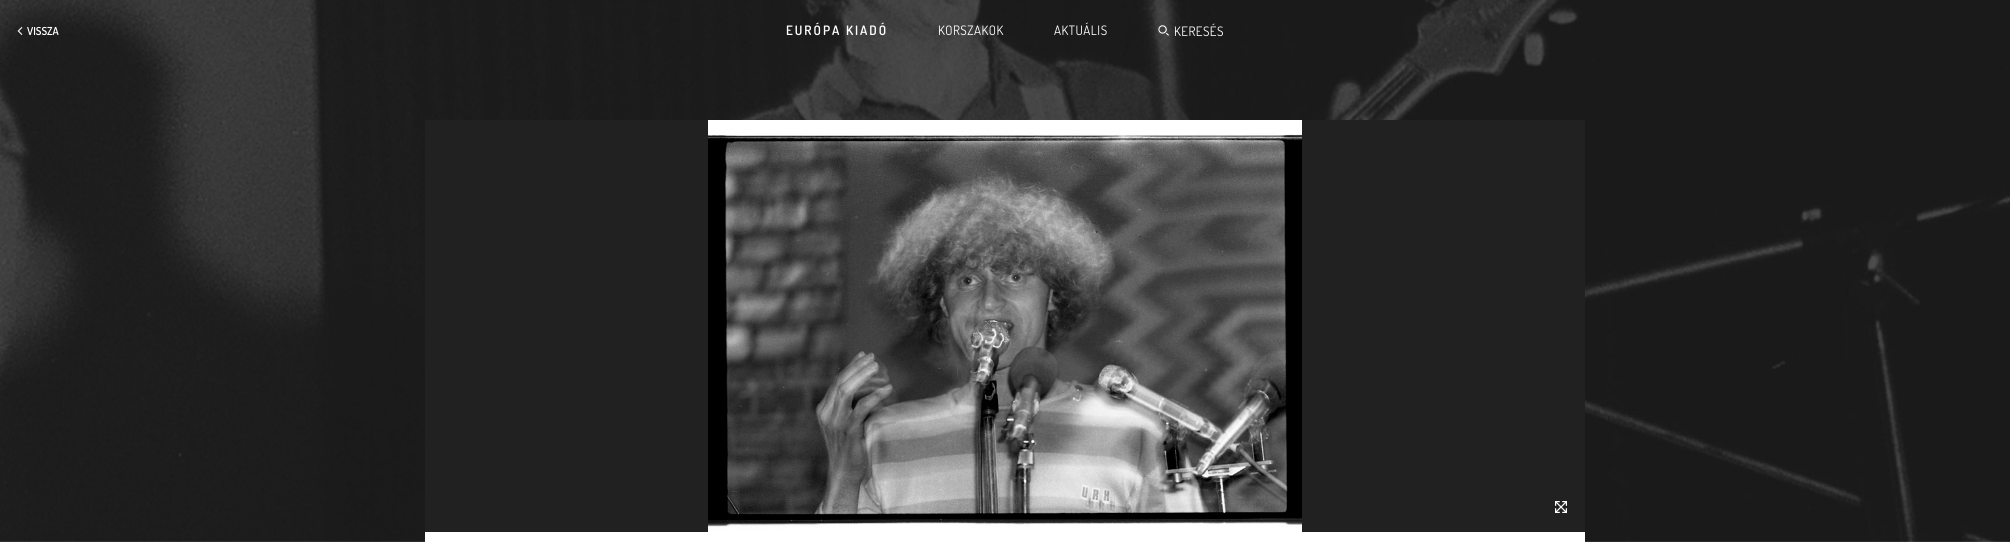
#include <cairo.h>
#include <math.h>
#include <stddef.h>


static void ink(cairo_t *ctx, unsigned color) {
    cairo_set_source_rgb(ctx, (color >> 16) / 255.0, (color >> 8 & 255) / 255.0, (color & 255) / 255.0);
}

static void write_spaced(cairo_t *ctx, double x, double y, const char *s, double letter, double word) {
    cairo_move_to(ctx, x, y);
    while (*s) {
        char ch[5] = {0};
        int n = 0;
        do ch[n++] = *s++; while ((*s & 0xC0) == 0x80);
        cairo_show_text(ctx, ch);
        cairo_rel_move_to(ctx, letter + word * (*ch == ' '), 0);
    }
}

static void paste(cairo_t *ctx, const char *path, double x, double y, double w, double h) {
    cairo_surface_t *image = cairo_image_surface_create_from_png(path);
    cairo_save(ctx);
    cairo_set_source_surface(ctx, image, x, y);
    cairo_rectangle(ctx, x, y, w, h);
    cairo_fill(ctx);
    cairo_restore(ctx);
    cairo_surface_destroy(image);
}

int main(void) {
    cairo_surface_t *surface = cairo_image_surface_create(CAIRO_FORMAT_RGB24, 2010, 542);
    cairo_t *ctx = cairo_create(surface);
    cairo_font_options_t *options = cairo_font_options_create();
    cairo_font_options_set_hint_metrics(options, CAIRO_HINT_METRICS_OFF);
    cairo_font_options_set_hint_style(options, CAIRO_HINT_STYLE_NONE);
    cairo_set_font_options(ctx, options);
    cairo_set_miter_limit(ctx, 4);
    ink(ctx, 0xFFFFFF);
    cairo_paint(ctx);
    paste(ctx, "media/1.png", 0, 0, 2010, 542);
    paste(ctx, "media/2.png", 17, 27, 6, 8);
    cairo_select_font_face(ctx, "Dosis SemiBold", CAIRO_FONT_SLANT_NORMAL, CAIRO_FONT_WEIGHT_NORMAL);
    cairo_set_font_size(ctx, 11);
    ink(ctx, 0xFFFFFF);
    cairo_move_to(ctx, 27, 35);
    cairo_show_text(ctx, "VISSZA");
    cairo_set_font_size(ctx, 13);
    write_spaced(ctx, 786, 35, "EURÓPA KIADÓ", 2, 0);
    cairo_select_font_face(ctx, "Dosis", CAIRO_FONT_SLANT_NORMAL, CAIRO_FONT_WEIGHT_NORMAL);
    write_spaced(ctx, 938, 35, "KORSZAKOK", 0.5, 0);
    write_spaced(ctx, 1054, 35, "AKTUÁLIS", 0.5, 0);
    paste(ctx, "media/3.png", 1158, 25, 11, 11);
    write_spaced(ctx, 1174, 36, "KERESÉS", 0.5, 0);
    ink(ctx, 0x212121);
    cairo_rectangle(ctx, 425, 120, 1160, 412);
    cairo_fill(ctx);
    paste(ctx, "media/4.png", 708, 120, 594, 412);
    paste(ctx, "media/5.png", 1555, 501, 12, 12);
    ink(ctx, 0xFFFFFF);
    cairo_rectangle(ctx, 425, 532, 1160, 10);
    cairo_fill(ctx);
    cairo_surface_write_to_png(surface, "image.png");
    cairo_font_options_destroy(options);
    cairo_destroy(ctx);
    cairo_surface_destroy(surface);
    return 0;
}
